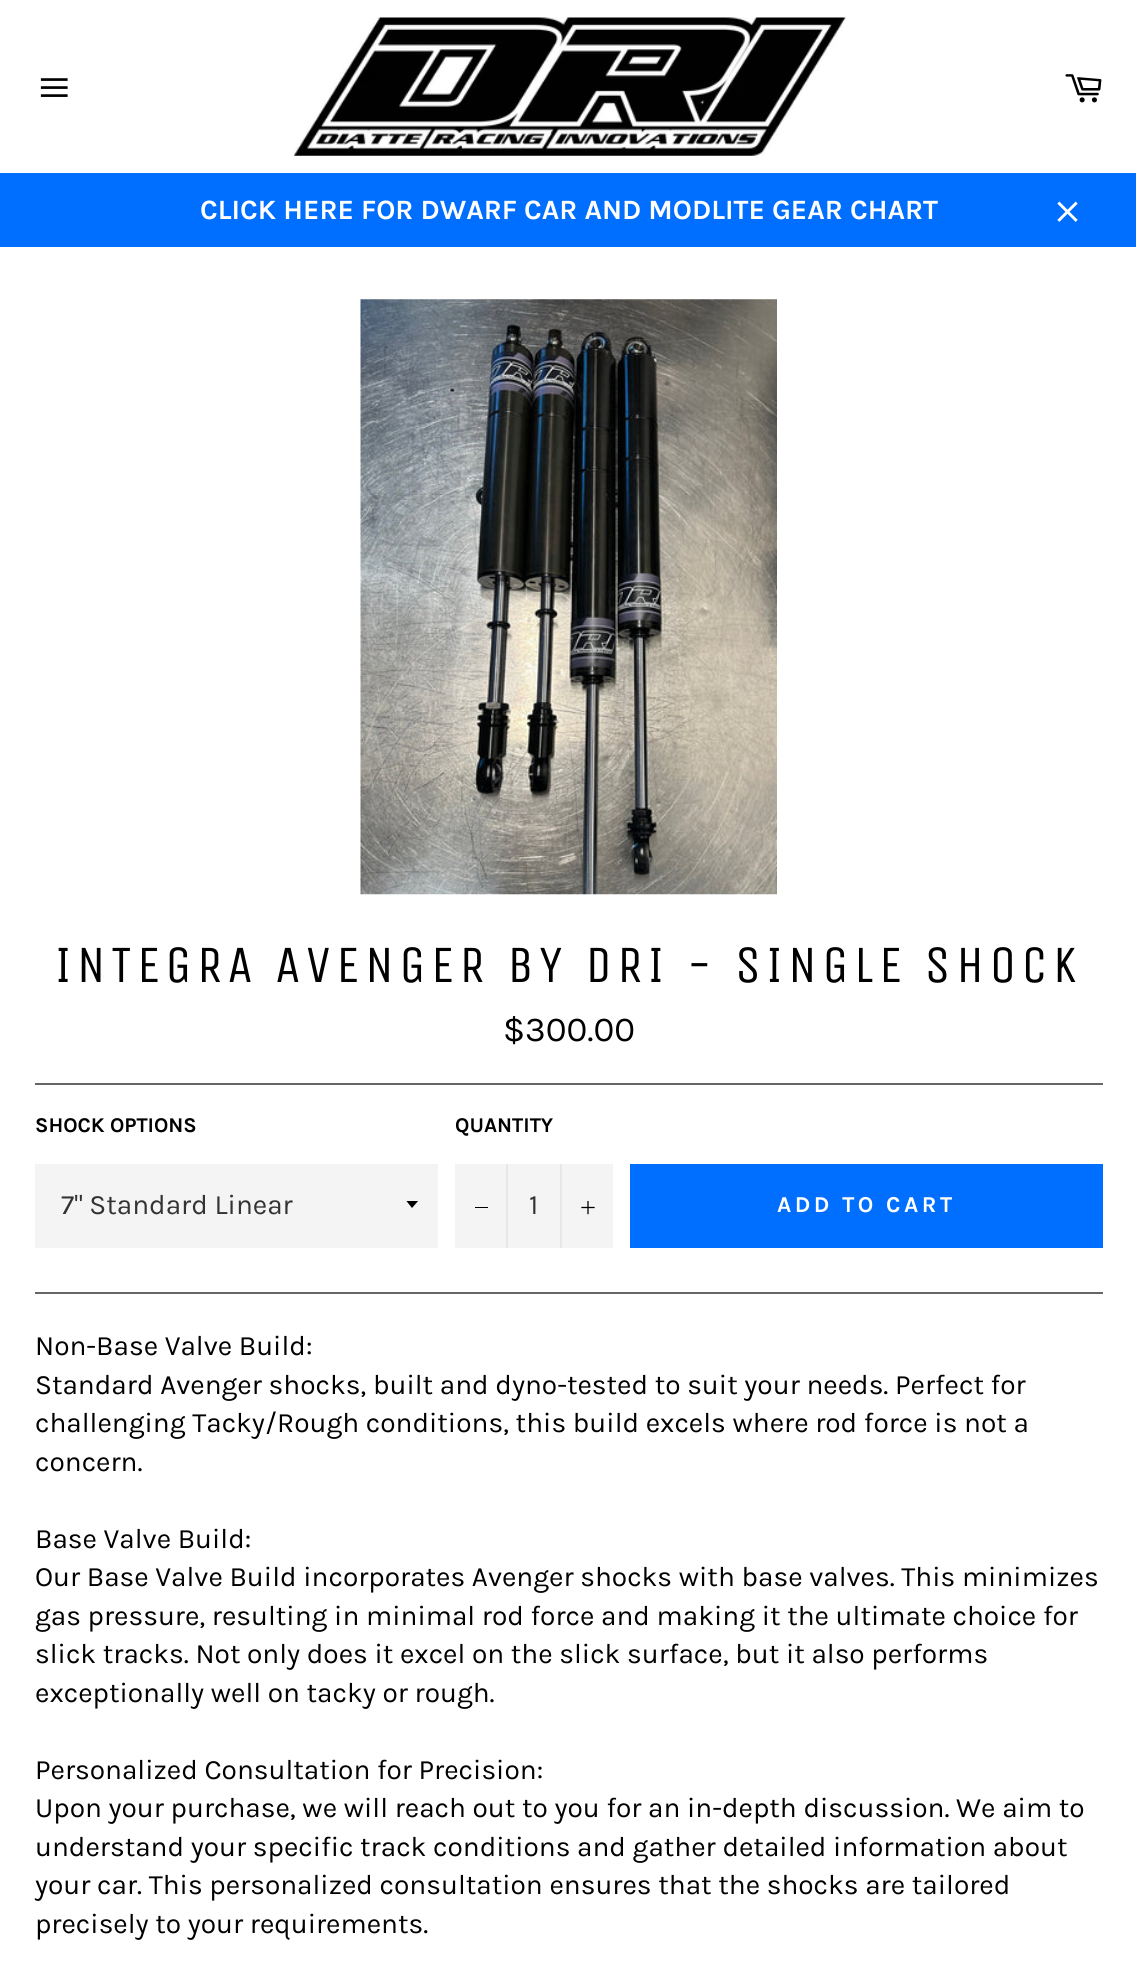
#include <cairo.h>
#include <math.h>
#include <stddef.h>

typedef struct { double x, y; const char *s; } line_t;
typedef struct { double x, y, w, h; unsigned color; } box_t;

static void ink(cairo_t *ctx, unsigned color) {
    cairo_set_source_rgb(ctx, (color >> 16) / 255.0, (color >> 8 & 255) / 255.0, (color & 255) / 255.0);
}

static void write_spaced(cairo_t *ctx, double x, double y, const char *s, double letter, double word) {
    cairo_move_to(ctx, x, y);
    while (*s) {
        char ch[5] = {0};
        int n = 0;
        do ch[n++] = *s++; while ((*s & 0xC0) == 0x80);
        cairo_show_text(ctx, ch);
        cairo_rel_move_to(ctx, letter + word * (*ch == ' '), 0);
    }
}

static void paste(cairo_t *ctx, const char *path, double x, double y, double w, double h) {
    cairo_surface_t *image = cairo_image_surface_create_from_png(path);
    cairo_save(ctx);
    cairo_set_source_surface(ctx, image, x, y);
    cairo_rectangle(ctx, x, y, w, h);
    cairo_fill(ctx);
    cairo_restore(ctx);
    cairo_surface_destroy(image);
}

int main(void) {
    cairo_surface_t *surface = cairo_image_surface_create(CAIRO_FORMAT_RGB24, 1136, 1967);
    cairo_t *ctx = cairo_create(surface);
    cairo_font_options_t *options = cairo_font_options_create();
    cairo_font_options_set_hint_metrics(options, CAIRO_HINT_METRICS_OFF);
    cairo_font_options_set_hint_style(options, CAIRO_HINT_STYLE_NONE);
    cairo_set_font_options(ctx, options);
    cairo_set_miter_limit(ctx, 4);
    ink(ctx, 0xFFFFFF);
    cairo_paint(ctx);
    paste(ctx, "media/1.png", 40, 78, 28, 19);
    paste(ctx, "media/2.png", 294, 17, 552, 139);
    paste(ctx, "media/3.png", 1065, 74, 37, 29);
    ink(ctx, 0x006EFF);
    cairo_rectangle(ctx, 0, 173, 1136, 74);
    cairo_fill(ctx);
    cairo_select_font_face(ctx, "Karla", CAIRO_FONT_SLANT_NORMAL, CAIRO_FONT_WEIGHT_BOLD);
    cairo_set_font_size(ctx, 28);
    ink(ctx, 0xFFFFFF);
    cairo_move_to(ctx, 200, 219);
    cairo_show_text(ctx, "CLICK HERE FOR DWARF CAR AND MODLITE GEAR CHART");
    paste(ctx, "media/4.png", 1057, 201, 21, 21);
    paste(ctx, "media/5.png", 360, 299, 417, 596);
    cairo_select_font_face(ctx, "Unica One", CAIRO_FONT_SLANT_NORMAL, CAIRO_FONT_WEIGHT_NORMAL);
    cairo_set_font_size(ctx, 52.5);
    ink(ctx, 0x000000);
    write_spaced(ctx, 55, 982, "INTEGRA AVENGER BY DRI - SINGLE SHOCK", 5.25, 0);
    cairo_select_font_face(ctx, "Karla", CAIRO_FONT_SLANT_NORMAL, CAIRO_FONT_WEIGHT_NORMAL);
    cairo_set_font_size(ctx, 35);
    cairo_move_to(ctx, 503, 1041);
    cairo_show_text(ctx, "$300.00");
    ink(ctx, 0x666666);
    cairo_rectangle(ctx, 35, 1083, 1068, 2);
    cairo_fill(ctx);
    cairo_select_font_face(ctx, "Karla", CAIRO_FONT_SLANT_NORMAL, CAIRO_FONT_WEIGHT_BOLD);
    cairo_set_font_size(ctx, 21);
    ink(ctx, 0x000000);
    cairo_move_to(ctx, 35, 1132);
    cairo_show_text(ctx, "SHOCK OPTIONS");
    ink(ctx, 0xF4F4F4);
    cairo_rectangle(ctx, 35, 1164, 403, 84);
    cairo_fill(ctx);
    cairo_save(ctx);
    cairo_rectangle(ctx, 406, 1201, 14, 8);
    cairo_clip(ctx);
    ink(ctx, 0x000000);
    cairo_new_path(ctx);
    cairo_move_to(ctx, 406, 1200.5);
    cairo_line_to(ctx, 412, 1208);
    cairo_line_to(ctx, 418.5, 1200.5);
    cairo_close_path(ctx);
    cairo_fill(ctx);
    cairo_restore(ctx);
    cairo_select_font_face(ctx, "Karla", CAIRO_FONT_SLANT_NORMAL, CAIRO_FONT_WEIGHT_NORMAL);
    cairo_set_font_size(ctx, 28);
    ink(ctx, 0x333333);
    cairo_move_to(ctx, 61, 1214);
    cairo_show_text(ctx, "7\" Standard Linear");
    cairo_select_font_face(ctx, "Karla", CAIRO_FONT_SLANT_NORMAL, CAIRO_FONT_WEIGHT_BOLD);
    cairo_set_font_size(ctx, 21);
    ink(ctx, 0x000000);
    cairo_move_to(ctx, 455, 1132);
    cairo_show_text(ctx, "QUANTITY");
    {
        static const box_t items[] = {
            {455, 1164, 158, 84, 0xF4F4F4},
            {506, 1164, 2, 84, 0xE7E7E7},
            {475, 1207, 13, 1, 0x000000},
        };
        for (size_t i = 0; i < sizeof items / sizeof *items; i++) {
            ink(ctx, items[i].color);
            cairo_rectangle(ctx, items[i].x, items[i].y, items[i].w, items[i].h);
            cairo_fill(ctx);
        }
    }
    cairo_select_font_face(ctx, "Karla", CAIRO_FONT_SLANT_NORMAL, CAIRO_FONT_WEIGHT_NORMAL);
    cairo_set_font_size(ctx, 28);
    ink(ctx, 0x333333);
    cairo_move_to(ctx, 529, 1214);
    cairo_show_text(ctx, "1");
    ink(ctx, 0xE7E7E7);
    cairo_rectangle(ctx, 560, 1164, 2, 84);
    cairo_fill(ctx);
    paste(ctx, "media/6.png", 581, 1201, 14, 14);
    ink(ctx, 0x006EFF);
    cairo_rectangle(ctx, 630, 1164, 473, 84);
    cairo_fill(ctx);
    cairo_select_font_face(ctx, "Karla", CAIRO_FONT_SLANT_NORMAL, CAIRO_FONT_WEIGHT_BOLD);
    cairo_set_font_size(ctx, 22.75);
    ink(ctx, 0xFFFFFF);
    write_spaced(ctx, 777, 1212, "ADD TO CART", 3.5, 0);
    ink(ctx, 0x666666);
    cairo_rectangle(ctx, 35, 1292, 1068, 2);
    cairo_fill(ctx);
    cairo_select_font_face(ctx, "Karla", CAIRO_FONT_SLANT_NORMAL, CAIRO_FONT_WEIGHT_NORMAL);
    cairo_set_font_size(ctx, 28);
    ink(ctx, 0x000000);
    {
        static const line_t items[] = {
            {35, 1355, "Non-Base Valve Build:"},
            {35, 1394, "Standard Avenger shocks, built and dyno-tested to suit your needs. Perfect for"},
            {35, 1432, "challenging Tacky/Rough conditions, this build excels where rod force is not a"},
            {35, 1471, "concern."},
            {35, 1548, "Base Valve Build:"},
            {35, 1586, "Our Base Valve Build incorporates Avenger shocks with base valves. This minimizes"},
            {35, 1625, "gas pressure, resulting in minimal rod force and making it the ultimate choice for"},
            {35, 1663, "slick tracks. Not only does it excel on the slick surface, but it also performs"},
            {35, 1702, "exceptionally well on tacky or rough."},
            {35, 1779, "Personalized Consultation for Precision:"},
            {35, 1817, "Upon your purchase, we will reach out to you for an in-depth discussion. We aim to"},
            {35, 1856, "understand your specific track conditions and gather detailed information about"},
            {35, 1894, "your car. This personalized consultation ensures that the shocks are tailored"},
            {35, 1933, "precisely to your requirements."},
        };
        for (size_t i = 0; i < sizeof items / sizeof *items; i++) {
            cairo_move_to(ctx, items[i].x, items[i].y);
            cairo_show_text(ctx, items[i].s);
        }
    }
    cairo_surface_write_to_png(surface, "image.png");
    cairo_font_options_destroy(options);
    cairo_destroy(ctx);
    cairo_surface_destroy(surface);
    return 0;
}
